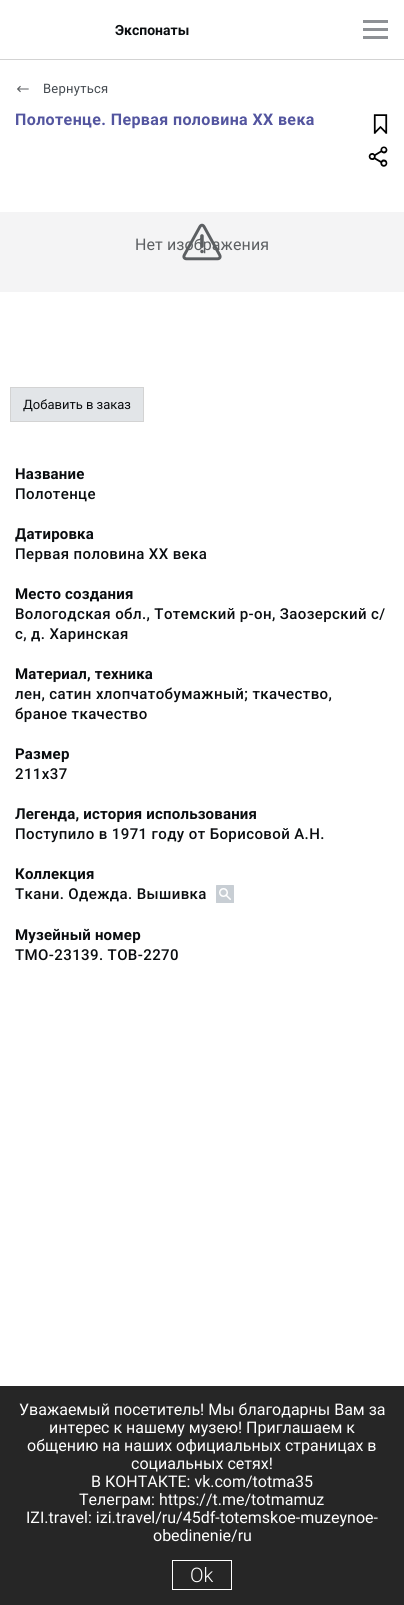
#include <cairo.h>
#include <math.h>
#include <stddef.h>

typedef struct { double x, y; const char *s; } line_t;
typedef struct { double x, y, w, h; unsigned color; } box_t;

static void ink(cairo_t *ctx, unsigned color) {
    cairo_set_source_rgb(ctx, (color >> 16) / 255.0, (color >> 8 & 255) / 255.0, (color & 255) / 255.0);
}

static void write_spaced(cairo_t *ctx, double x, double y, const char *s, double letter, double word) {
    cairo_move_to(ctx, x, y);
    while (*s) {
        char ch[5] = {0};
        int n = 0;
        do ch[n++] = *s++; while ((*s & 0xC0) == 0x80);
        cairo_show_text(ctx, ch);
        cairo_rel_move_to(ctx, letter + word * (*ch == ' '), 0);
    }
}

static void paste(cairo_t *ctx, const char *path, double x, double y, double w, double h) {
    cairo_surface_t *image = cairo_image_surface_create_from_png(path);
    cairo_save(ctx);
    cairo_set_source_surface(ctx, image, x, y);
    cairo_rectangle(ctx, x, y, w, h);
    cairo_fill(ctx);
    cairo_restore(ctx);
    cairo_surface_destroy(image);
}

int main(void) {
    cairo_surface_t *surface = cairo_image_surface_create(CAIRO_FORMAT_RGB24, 404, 1605);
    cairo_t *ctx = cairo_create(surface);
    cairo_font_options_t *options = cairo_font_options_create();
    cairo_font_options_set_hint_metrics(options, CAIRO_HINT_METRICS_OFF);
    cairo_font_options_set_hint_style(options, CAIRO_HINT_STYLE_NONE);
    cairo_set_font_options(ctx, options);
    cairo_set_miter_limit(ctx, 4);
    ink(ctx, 0xFFFFFF);
    cairo_paint(ctx);
    ink(ctx, 0xD3D3D3);
    cairo_rectangle(ctx, 0, 59, 404, 1);
    cairo_fill(ctx);
    cairo_select_font_face(ctx, "Roboto", CAIRO_FONT_SLANT_NORMAL, CAIRO_FONT_WEIGHT_BOLD);
    cairo_set_font_size(ctx, 14);
    ink(ctx, 0x0A0D10);
    cairo_move_to(ctx, 115, 35);
    cairo_show_text(ctx, "Экспонаты");
    {
        static const box_t items[] = {
            {363, 20, 25, 3, 0x8E9195},
            {363, 28, 25, 3, 0x8E9195},
            {363, 36, 25, 3, 0x8E9195},
        };
        for (size_t i = 0; i < sizeof items / sizeof *items; i++) {
            ink(ctx, items[i].color);
            cairo_rectangle(ctx, items[i].x, items[i].y, items[i].w, items[i].h);
            cairo_fill(ctx);
        }
    }
    paste(ctx, "media/1.png", 17, 85, 12, 8);
    cairo_select_font_face(ctx, "Roboto", CAIRO_FONT_SLANT_NORMAL, CAIRO_FONT_WEIGHT_NORMAL);
    cairo_set_font_size(ctx, 13);
    ink(ctx, 0x444A50);
    write_spaced(ctx, 43, 93, "Вернуться", 0.25, 0);
    cairo_select_font_face(ctx, "Roboto", CAIRO_FONT_SLANT_NORMAL, CAIRO_FONT_WEIGHT_BOLD);
    cairo_set_font_size(ctx, 16);
    ink(ctx, 0x53559F);
    write_spaced(ctx, 15, 125, "Полотенце. Первая половина XX века", 0.4, 0);
    ink(ctx, 0xF4F4F5);
    cairo_rectangle(ctx, 0, 212, 404, 80);
    cairo_fill(ctx);
    cairo_select_font_face(ctx, "Roboto", CAIRO_FONT_SLANT_NORMAL, CAIRO_FONT_WEIGHT_NORMAL);
    ink(ctx, 0x5C5F62);
    write_spaced(ctx, 135, 250, "Нет изображения", 0.1, 0);
    paste(ctx, "media/2.png", 182, 223, 40, 38);
    ink(ctx, 0xE2E5E8);
    cairo_rectangle(ctx, 10.5, 387.5, 133, 34);
    cairo_fill_preserve(ctx);
    ink(ctx, 0xD3D3D3);
    cairo_set_line_width(ctx, 1);
    cairo_stroke(ctx);
    cairo_set_font_size(ctx, 13);
    ink(ctx, 0x0A0D10);
    cairo_move_to(ctx, 23, 409);
    cairo_show_text(ctx, "Добавить в заказ");
    paste(ctx, "media/3.png", 373, 114, 15, 20);
    paste(ctx, "media/4.png", 368, 146, 20, 21);
    cairo_select_font_face(ctx, "Roboto", CAIRO_FONT_SLANT_NORMAL, CAIRO_FONT_WEIGHT_BOLD);
    cairo_set_font_size(ctx, 15);
    write_spaced(ctx, 15, 479, "Название", 0.2, 0);
    cairo_select_font_face(ctx, "Roboto Medium", CAIRO_FONT_SLANT_NORMAL, CAIRO_FONT_WEIGHT_NORMAL);
    write_spaced(ctx, 15, 499, "Полотенце", 0.4, 0);
    cairo_select_font_face(ctx, "Roboto", CAIRO_FONT_SLANT_NORMAL, CAIRO_FONT_WEIGHT_BOLD);
    write_spaced(ctx, 15, 539, "Датировка", 0.2, 0);
    cairo_select_font_face(ctx, "Roboto Medium", CAIRO_FONT_SLANT_NORMAL, CAIRO_FONT_WEIGHT_NORMAL);
    write_spaced(ctx, 15, 559, "Первая половина XX века", 0.4, 0);
    cairo_select_font_face(ctx, "Roboto", CAIRO_FONT_SLANT_NORMAL, CAIRO_FONT_WEIGHT_BOLD);
    write_spaced(ctx, 15, 599, "Место создания", 0.2, 0);
    cairo_select_font_face(ctx, "Roboto Medium", CAIRO_FONT_SLANT_NORMAL, CAIRO_FONT_WEIGHT_NORMAL);
    write_spaced(ctx, 15, 619, "Вологодская обл., Тотемский р-он, Заозерский с/", 0.4, 0);
    write_spaced(ctx, 15, 639, "с, д. Харинская", 0.4, 0);
    cairo_select_font_face(ctx, "Roboto", CAIRO_FONT_SLANT_NORMAL, CAIRO_FONT_WEIGHT_BOLD);
    write_spaced(ctx, 15, 679, "Материал, техника", 0.2, 0);
    cairo_select_font_face(ctx, "Roboto Medium", CAIRO_FONT_SLANT_NORMAL, CAIRO_FONT_WEIGHT_NORMAL);
    write_spaced(ctx, 15, 699, "лен, сатин хлопчатобумажный; ткачество,", 0.4, 0);
    write_spaced(ctx, 15, 719, "браное ткачество", 0.4, 0);
    cairo_select_font_face(ctx, "Roboto", CAIRO_FONT_SLANT_NORMAL, CAIRO_FONT_WEIGHT_BOLD);
    write_spaced(ctx, 15, 759, "Размер", 0.2, 0);
    cairo_select_font_face(ctx, "Roboto Medium", CAIRO_FONT_SLANT_NORMAL, CAIRO_FONT_WEIGHT_NORMAL);
    write_spaced(ctx, 15, 779, "211x37", 0.4, 0);
    cairo_select_font_face(ctx, "Roboto", CAIRO_FONT_SLANT_NORMAL, CAIRO_FONT_WEIGHT_BOLD);
    write_spaced(ctx, 15, 819, "Легенда, история использования", 0.2, 0);
    cairo_select_font_face(ctx, "Roboto Medium", CAIRO_FONT_SLANT_NORMAL, CAIRO_FONT_WEIGHT_NORMAL);
    write_spaced(ctx, 15, 839, "Поступило в 1971 году от Борисовой А.Н.", 0.4, 0);
    cairo_select_font_face(ctx, "Roboto", CAIRO_FONT_SLANT_NORMAL, CAIRO_FONT_WEIGHT_BOLD);
    write_spaced(ctx, 15, 879, "Коллекция", 0.2, 0);
    cairo_select_font_face(ctx, "Roboto Medium", CAIRO_FONT_SLANT_NORMAL, CAIRO_FONT_WEIGHT_NORMAL);
    write_spaced(ctx, 15, 899, "Ткани. Одежда. Вышивка", 0.4, 0);
    paste(ctx, "media/5.png", 216, 885, 18, 18);
    cairo_select_font_face(ctx, "Roboto", CAIRO_FONT_SLANT_NORMAL, CAIRO_FONT_WEIGHT_BOLD);
    write_spaced(ctx, 15, 940, "Музейный номер", 0.2, 0);
    cairo_select_font_face(ctx, "Roboto Medium", CAIRO_FONT_SLANT_NORMAL, CAIRO_FONT_WEIGHT_NORMAL);
    write_spaced(ctx, 15, 960, "ТМО-23139. ТОВ-2270", 0.4, 0);
    ink(ctx, 0x262626);
    cairo_rectangle(ctx, 0, 1386, 404, 219);
    cairo_fill(ctx);
    cairo_select_font_face(ctx, "Roboto", CAIRO_FONT_SLANT_NORMAL, CAIRO_FONT_WEIGHT_NORMAL);
    cairo_set_font_size(ctx, 16);
    ink(ctx, 0xFFFFFF);
    {
        static const line_t items[] = {
            {19, 1415, "Уважаемый посетитель! Мы благодарны Вам за"},
            {49, 1433, "интерес к нашему музею! Приглашаем к"},
            {27, 1451, "общению на наших официальных страницах в"},
            {131, 1469, "социальных сетях!"},
            {91, 1487, "В КОНТАКТЕ: vk.com/totma35"},
            {79, 1505, "Телеграм: https://t.me/totmamuz"},
            {26, 1523, "IZI.travel: izi.travel/ru/45df-totemskoe-muzeynoe-"},
            {153, 1541, "obedinenie/ru"},
        };
        for (size_t i = 0; i < sizeof items / sizeof *items; i++) {
            cairo_move_to(ctx, items[i].x, items[i].y);
            cairo_show_text(ctx, items[i].s);
        }
    }
    cairo_rectangle(ctx, 172.5, 1560.5, 59, 29);
    cairo_stroke(ctx);
    cairo_select_font_face(ctx, "Roboto Light", CAIRO_FONT_SLANT_NORMAL, CAIRO_FONT_WEIGHT_NORMAL);
    cairo_set_font_size(ctx, 20);
    cairo_move_to(ctx, 190, 1582);
    cairo_show_text(ctx, "Ok");
    cairo_surface_write_to_png(surface, "image.png");
    cairo_font_options_destroy(options);
    cairo_destroy(ctx);
    cairo_surface_destroy(surface);
    return 0;
}
